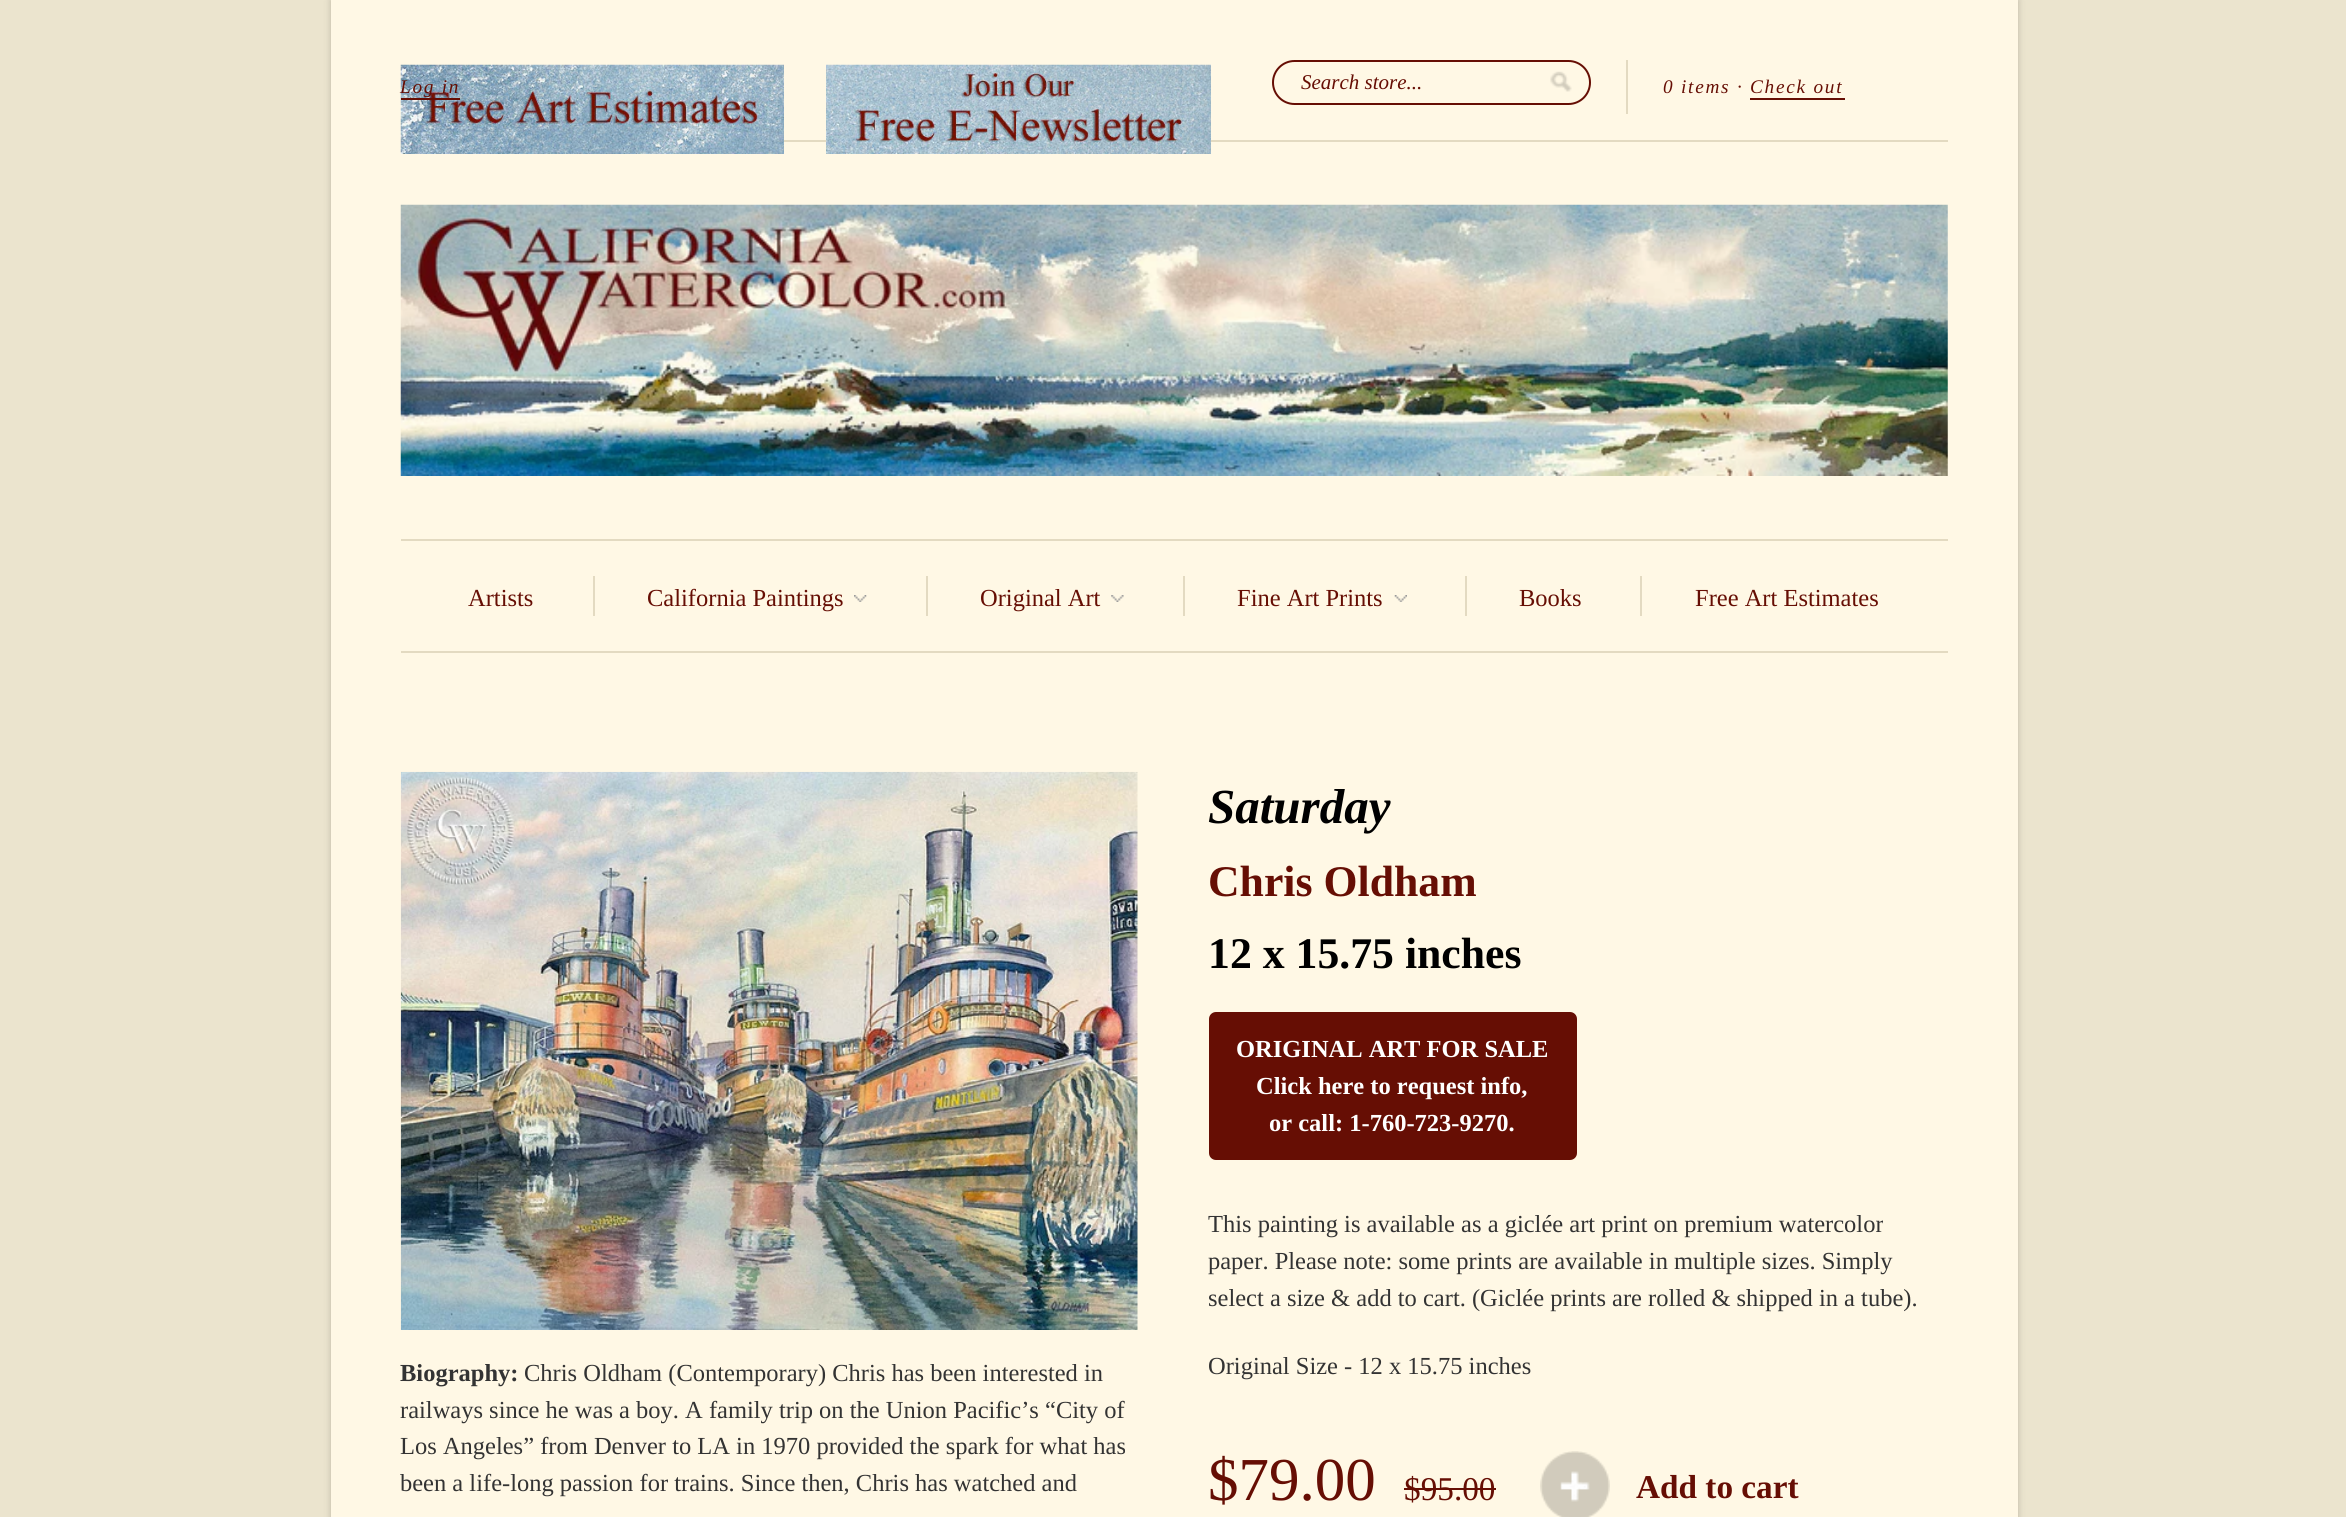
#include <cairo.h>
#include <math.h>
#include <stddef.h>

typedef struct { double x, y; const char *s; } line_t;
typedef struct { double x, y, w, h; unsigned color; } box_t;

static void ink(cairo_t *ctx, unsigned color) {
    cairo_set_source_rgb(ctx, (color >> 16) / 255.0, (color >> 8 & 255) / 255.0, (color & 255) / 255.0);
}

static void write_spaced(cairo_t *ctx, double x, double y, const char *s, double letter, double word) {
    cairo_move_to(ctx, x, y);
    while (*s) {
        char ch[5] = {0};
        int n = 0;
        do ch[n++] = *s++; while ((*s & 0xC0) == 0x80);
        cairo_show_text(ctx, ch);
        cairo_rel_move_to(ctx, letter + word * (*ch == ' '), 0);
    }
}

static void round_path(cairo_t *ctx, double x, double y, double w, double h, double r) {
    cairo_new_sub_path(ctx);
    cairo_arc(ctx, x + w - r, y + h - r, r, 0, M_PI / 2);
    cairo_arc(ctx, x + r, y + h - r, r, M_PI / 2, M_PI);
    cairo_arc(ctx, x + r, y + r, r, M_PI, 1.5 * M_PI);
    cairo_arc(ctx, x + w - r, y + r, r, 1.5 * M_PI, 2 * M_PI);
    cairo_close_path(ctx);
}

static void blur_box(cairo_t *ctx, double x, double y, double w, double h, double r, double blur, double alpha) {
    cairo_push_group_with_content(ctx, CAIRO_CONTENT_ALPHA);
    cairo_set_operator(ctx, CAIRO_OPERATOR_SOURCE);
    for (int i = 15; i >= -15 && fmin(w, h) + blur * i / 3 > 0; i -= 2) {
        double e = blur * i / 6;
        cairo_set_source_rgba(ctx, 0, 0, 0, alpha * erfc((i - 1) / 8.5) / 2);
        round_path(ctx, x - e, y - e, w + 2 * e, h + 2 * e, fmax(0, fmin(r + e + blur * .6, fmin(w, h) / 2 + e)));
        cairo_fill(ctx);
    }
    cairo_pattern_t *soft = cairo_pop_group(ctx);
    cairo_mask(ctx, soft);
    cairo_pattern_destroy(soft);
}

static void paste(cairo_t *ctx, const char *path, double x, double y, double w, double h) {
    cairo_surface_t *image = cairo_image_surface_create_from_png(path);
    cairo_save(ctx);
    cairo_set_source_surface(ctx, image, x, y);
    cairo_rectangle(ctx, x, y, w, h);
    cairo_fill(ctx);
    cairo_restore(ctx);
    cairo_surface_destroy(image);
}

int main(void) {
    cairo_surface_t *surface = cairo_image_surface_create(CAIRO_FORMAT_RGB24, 2346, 1517);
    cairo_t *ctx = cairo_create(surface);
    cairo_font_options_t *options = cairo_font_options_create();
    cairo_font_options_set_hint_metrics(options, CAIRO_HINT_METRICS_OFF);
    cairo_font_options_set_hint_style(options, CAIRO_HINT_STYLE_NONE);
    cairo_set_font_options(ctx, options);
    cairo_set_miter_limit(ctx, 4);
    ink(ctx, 0xEBE4CE);
    cairo_paint(ctx);
    ink(ctx, 0x000000);
    blur_box(ctx, 331, 0, 1687, 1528, 0, 3.5, 0.2);
    {
        static const box_t items[] = {
            {331, 0, 1687, 1517, 0xFFF8E5},
            {401, 651, 1547, 2, 0xE3DAC1},
            {784, 140, 1164, 2, 0xE3DAC1},
        };
        for (size_t i = 0; i < sizeof items / sizeof *items; i++) {
            ink(ctx, items[i].color);
            cairo_rectangle(ctx, items[i].x, items[i].y, items[i].w, items[i].h);
            cairo_fill(ctx);
        }
    }
    paste(ctx, "media/1.png", 400, 64, 384, 90);
    paste(ctx, "media/2.png", 826, 64, 385, 90);
    round_path(ctx, 1273, 61, 317, 43, 21.5);
    ink(ctx, 0x660E04);
    cairo_stroke(ctx);
    cairo_select_font_face(ctx, "Liberation Serif", CAIRO_FONT_SLANT_ITALIC, CAIRO_FONT_WEIGHT_NORMAL);
    cairo_set_font_size(ctx, 21);
    cairo_move_to(ctx, 1301, 89);
    cairo_show_text(ctx, "Search store...");
    paste(ctx, "media/3.png", 1550, 71, 22, 21);
    ink(ctx, 0xE3DAC1);
    cairo_rectangle(ctx, 1626, 60, 2, 54);
    cairo_fill(ctx);
    cairo_set_font_size(ctx, 19.25);
    ink(ctx, 0x660E04);
    write_spaced(ctx, 1663, 93, "0 items · Check out", 1.75, 0);
    cairo_rectangle(ctx, 1750, 98, 95, 2);
    cairo_fill(ctx);
    write_spaced(ctx, 400, 93, "Log in", 1.75, 0);
    cairo_rectangle(ctx, 401, 98, 59, 2);
    cairo_fill(ctx);
    paste(ctx, "media/4.png", 400, 204, 1548, 272);
    ink(ctx, 0xE3DAC1);
    cairo_rectangle(ctx, 401, 539, 1547, 2);
    cairo_fill(ctx);
    cairo_select_font_face(ctx, "Liberation Serif", CAIRO_FONT_SLANT_NORMAL, CAIRO_FONT_WEIGHT_NORMAL);
    cairo_set_font_size(ctx, 24.5);
    ink(ctx, 0x660E04);
    cairo_move_to(ctx, 468, 606);
    cairo_show_text(ctx, "Artists");
    ink(ctx, 0xE3DAC1);
    cairo_rectangle(ctx, 593, 576, 2, 40);
    cairo_fill(ctx);
    ink(ctx, 0x660E04);
    cairo_move_to(ctx, 647, 606);
    cairo_show_text(ctx, "California Paintings");
    paste(ctx, "media/5.png", 854, 595, 13, 7);
    ink(ctx, 0xE3DAC1);
    cairo_rectangle(ctx, 926, 576, 2, 40);
    cairo_fill(ctx);
    ink(ctx, 0x660E04);
    cairo_move_to(ctx, 980, 606);
    cairo_show_text(ctx, "Original Art");
    paste(ctx, "media/6.png", 1111, 595, 13, 7);
    ink(ctx, 0xE3DAC1);
    cairo_rectangle(ctx, 1183, 576, 2, 40);
    cairo_fill(ctx);
    ink(ctx, 0x660E04);
    cairo_move_to(ctx, 1237, 606);
    cairo_show_text(ctx, "Fine Art Prints");
    paste(ctx, "media/7.png", 1394, 595, 13, 7);
    ink(ctx, 0xE3DAC1);
    cairo_rectangle(ctx, 1465, 576, 2, 40);
    cairo_fill(ctx);
    ink(ctx, 0x660E04);
    cairo_move_to(ctx, 1519, 606);
    cairo_show_text(ctx, "Books");
    ink(ctx, 0xE3DAC1);
    cairo_rectangle(ctx, 1640, 576, 2, 40);
    cairo_fill(ctx);
    ink(ctx, 0x660E04);
    cairo_move_to(ctx, 1695, 606);
    cairo_show_text(ctx, "Free Art Estimates");
    paste(ctx, "media/8.png", 400, 771, 738, 559);
    cairo_select_font_face(ctx, "Liberation Serif", CAIRO_FONT_SLANT_NORMAL, CAIRO_FONT_WEIGHT_BOLD);
    ink(ctx, 0x333333);
    cairo_move_to(ctx, 400, 1381);
    cairo_show_text(ctx, "Biography:");
    cairo_select_font_face(ctx, "Liberation Serif", CAIRO_FONT_SLANT_NORMAL, CAIRO_FONT_WEIGHT_NORMAL);
    {
        static const line_t items[] = {
            {524, 1381, "Chris Oldham (Contemporary) Chris has been interested in"},
            {400, 1418, "railways since he was a boy. A family trip on the Union Pacific’s “City of"},
            {400, 1454, "Los Angeles” from Denver to LA in 1970 provided the spark for what has"},
            {400, 1491, "been a life-long passion for trains. Since then, Chris has watched and"},
        };
        for (size_t i = 0; i < sizeof items / sizeof *items; i++) {
            cairo_move_to(ctx, items[i].x, items[i].y);
            cairo_show_text(ctx, items[i].s);
        }
    }
    cairo_select_font_face(ctx, "Liberation Serif", CAIRO_FONT_SLANT_ITALIC, CAIRO_FONT_WEIGHT_BOLD);
    cairo_set_font_size(ctx, 49);
    ink(ctx, 0x000000);
    cairo_move_to(ctx, 1208, 823);
    cairo_show_text(ctx, "Saturday");
    cairo_select_font_face(ctx, "Liberation Serif", CAIRO_FONT_SLANT_NORMAL, CAIRO_FONT_WEIGHT_BOLD);
    cairo_set_font_size(ctx, 43.75);
    ink(ctx, 0x660E04);
    cairo_move_to(ctx, 1208, 896);
    cairo_show_text(ctx, "Chris Oldham");
    ink(ctx, 0x000000);
    cairo_move_to(ctx, 1208, 968);
    cairo_show_text(ctx, "12 x 15.75 inches");
    ink(ctx, 0x660E04);
    round_path(ctx, 1209, 1012, 368, 148, 7);
    cairo_fill(ctx);
    cairo_set_font_size(ctx, 24.5);
    ink(ctx, 0xFFFFFF);
    {
        static const line_t items[] = {
            {1236, 1057, "ORIGINAL ART FOR SALE"},
            {1256, 1094, "Click here to request info,"},
            {1269, 1131, "or call: 1-760-723-9270."},
        };
        for (size_t i = 0; i < sizeof items / sizeof *items; i++) {
            cairo_move_to(ctx, items[i].x, items[i].y);
            cairo_show_text(ctx, items[i].s);
        }
    }
    cairo_select_font_face(ctx, "Liberation Serif", CAIRO_FONT_SLANT_NORMAL, CAIRO_FONT_WEIGHT_NORMAL);
    ink(ctx, 0x333333);
    {
        static const line_t items[] = {
            {1208, 1232, "This painting is available as a giclée art print on premium watercolor"},
            {1208, 1269, "paper. Please note: some prints are available in multiple sizes. Simply"},
            {1208, 1306, "select a size & add to cart. (Giclée prints are rolled & shipped in a tube)."},
            {1208, 1374, "Original Size - 12 x 15.75 inches"},
        };
        for (size_t i = 0; i < sizeof items / sizeof *items; i++) {
            cairo_move_to(ctx, items[i].x, items[i].y);
            cairo_show_text(ctx, items[i].s);
        }
    }
    cairo_set_font_size(ctx, 61);
    ink(ctx, 0x660E04);
    cairo_move_to(ctx, 1208, 1500);
    cairo_show_text(ctx, "$79.00");
    cairo_set_font_size(ctx, 33.25);
    cairo_move_to(ctx, 1404, 1500);
    cairo_show_text(ctx, "$95.00");
    cairo_rectangle(ctx, 1404, 1488, 92, 2);
    cairo_fill(ctx);
    paste(ctx, "media/9.png", 1540, 1451, 70, 66);
    cairo_select_font_face(ctx, "Liberation Serif", CAIRO_FONT_SLANT_NORMAL, CAIRO_FONT_WEIGHT_BOLD);
    cairo_move_to(ctx, 1636, 1498);
    cairo_show_text(ctx, "Add to cart");
    cairo_surface_write_to_png(surface, "image.png");
    cairo_font_options_destroy(options);
    cairo_destroy(ctx);
    cairo_surface_destroy(surface);
    return 0;
}
